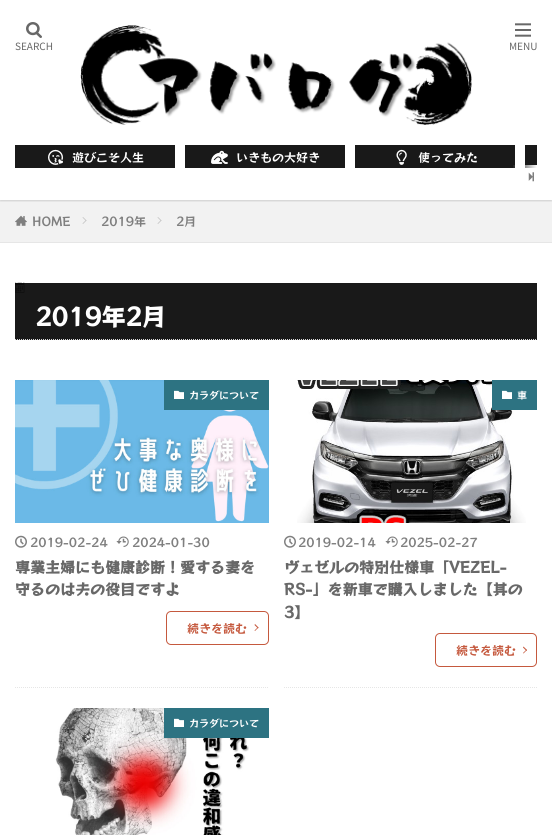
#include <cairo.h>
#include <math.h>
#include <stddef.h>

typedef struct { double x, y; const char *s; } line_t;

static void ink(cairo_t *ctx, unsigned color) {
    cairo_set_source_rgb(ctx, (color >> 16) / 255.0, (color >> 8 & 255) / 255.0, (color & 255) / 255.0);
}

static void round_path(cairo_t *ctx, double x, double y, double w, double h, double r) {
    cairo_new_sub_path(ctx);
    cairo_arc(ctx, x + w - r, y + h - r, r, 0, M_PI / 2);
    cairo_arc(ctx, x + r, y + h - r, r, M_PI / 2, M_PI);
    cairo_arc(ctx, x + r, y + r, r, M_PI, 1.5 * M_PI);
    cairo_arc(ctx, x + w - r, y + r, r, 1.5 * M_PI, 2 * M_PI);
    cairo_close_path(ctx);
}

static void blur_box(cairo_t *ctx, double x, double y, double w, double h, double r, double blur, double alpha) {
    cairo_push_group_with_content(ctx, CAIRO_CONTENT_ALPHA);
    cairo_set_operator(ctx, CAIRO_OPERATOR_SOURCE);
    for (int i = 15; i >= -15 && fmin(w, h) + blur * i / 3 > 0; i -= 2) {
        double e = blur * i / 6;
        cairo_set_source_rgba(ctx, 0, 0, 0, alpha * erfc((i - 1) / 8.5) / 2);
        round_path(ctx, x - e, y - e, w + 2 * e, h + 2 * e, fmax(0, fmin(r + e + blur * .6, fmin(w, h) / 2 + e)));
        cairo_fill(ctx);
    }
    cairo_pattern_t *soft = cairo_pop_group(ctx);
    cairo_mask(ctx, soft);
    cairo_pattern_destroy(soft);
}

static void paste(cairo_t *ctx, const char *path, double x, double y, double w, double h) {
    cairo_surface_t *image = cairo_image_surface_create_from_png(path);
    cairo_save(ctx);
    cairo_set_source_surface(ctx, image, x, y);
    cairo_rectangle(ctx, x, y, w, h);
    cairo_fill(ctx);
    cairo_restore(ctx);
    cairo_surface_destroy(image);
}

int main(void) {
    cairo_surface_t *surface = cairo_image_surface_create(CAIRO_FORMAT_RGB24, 552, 835);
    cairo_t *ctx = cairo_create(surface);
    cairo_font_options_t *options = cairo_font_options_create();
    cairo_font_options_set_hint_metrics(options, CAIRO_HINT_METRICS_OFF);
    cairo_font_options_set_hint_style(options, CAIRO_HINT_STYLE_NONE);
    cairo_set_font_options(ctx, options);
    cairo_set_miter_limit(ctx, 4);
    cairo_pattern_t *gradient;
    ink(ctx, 0xFFFFFF);
    cairo_paint(ctx);
    ink(ctx, 0xF2F2F2);
    cairo_rectangle(ctx, 0, 200, 552, 42);
    cairo_fill(ctx);
    cairo_save(ctx);
    cairo_rectangle(ctx, 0, 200, 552, 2);
    cairo_clip(ctx);
    ink(ctx, 0x000000);
    blur_box(ctx, 0, 1, 552, 200, 0, 1, 0.15);
    cairo_restore(ctx);
    paste(ctx, "media/1.png", 26, 22, 16, 16);
    cairo_select_font_face(ctx, "Noto Sans JP", CAIRO_FONT_SLANT_NORMAL, CAIRO_FONT_WEIGHT_NORMAL);
    cairo_set_font_size(ctx, 10);
    ink(ctx, 0x686868);
    cairo_move_to(ctx, 15, 50);
    cairo_show_text(ctx, "SEARCH");
    paste(ctx, "media/2.png", 80, 25, 392, 100);
    paste(ctx, "media/3.png", 515, 23, 16, 14);
    cairo_move_to(ctx, 509, 50);
    cairo_show_text(ctx, "MENU");
    ink(ctx, 0x191919);
    cairo_rectangle(ctx, 15, 145, 160, 23);
    cairo_fill(ctx);
    paste(ctx, "media/4.png", 48, 149, 15, 16);
    cairo_select_font_face(ctx, "RocknRoll One", CAIRO_FONT_SLANT_NORMAL, CAIRO_FONT_WEIGHT_NORMAL);
    cairo_set_font_size(ctx, 12);
    ink(ctx, 0xFFFFFF);
    cairo_move_to(ctx, 72, 162);
    cairo_show_text(ctx, "遊びこそ人生");
    ink(ctx, 0x191919);
    cairo_rectangle(ctx, 185, 145, 160, 23);
    cairo_fill(ctx);
    paste(ctx, "media/5.png", 211, 150, 17, 14);
    ink(ctx, 0xFFFFFF);
    cairo_move_to(ctx, 236, 162);
    cairo_show_text(ctx, "いきもの大好き");
    ink(ctx, 0x191919);
    cairo_rectangle(ctx, 355, 145, 160, 23);
    cairo_fill(ctx);
    paste(ctx, "media/6.png", 396, 149, 11, 16);
    ink(ctx, 0xFFFFFF);
    cairo_move_to(ctx, 418, 162);
    cairo_show_text(ctx, "使ってみた");
    ink(ctx, 0x191919);
    cairo_rectangle(ctx, 525, 145, 12, 23);
    cairo_fill(ctx);
    gradient = cairo_pattern_create_linear(512, 165, 537, 165);
    cairo_pattern_add_color_stop_rgba(gradient, 0, 1, 1, 1, 0);
    cairo_pattern_add_color_stop_rgba(gradient, 1, 1, 1, 1, 1);
    cairo_set_source(ctx, gradient);
    cairo_pattern_destroy(gradient);
    cairo_rectangle(ctx, 513, 165, 24, 3);
    cairo_fill(ctx);
    paste(ctx, "media/7.png", 528, 172, 6, 10);
    ink(ctx, 0xE6E6E6);
    cairo_rectangle(ctx, 0, 242, 552, 1);
    cairo_fill(ctx);
    paste(ctx, "media/8.png", 15, 215, 12, 11);
    ink(ctx, 0x7F7F7F);
    cairo_move_to(ctx, 32, 226);
    cairo_show_text(ctx, "HOME");
    ink(ctx, 0xBFBFBF);
    cairo_new_path(ctx);
    cairo_move_to(ctx, 83, 217);
    cairo_line_to(ctx, 86.5, 220.5);
    cairo_line_to(ctx, 86, 221);
    cairo_line_to(ctx, 82.5, 217.5);
    cairo_close_path(ctx);
    cairo_fill(ctx);
    cairo_new_path(ctx);
    cairo_move_to(ctx, 86, 220);
    cairo_line_to(ctx, 86.5, 220.5);
    cairo_line_to(ctx, 83, 224);
    cairo_line_to(ctx, 82.5, 223.5);
    cairo_close_path(ctx);
    cairo_fill(ctx);
    ink(ctx, 0x7F7F7F);
    cairo_move_to(ctx, 101, 226);
    cairo_show_text(ctx, "2019年");
    ink(ctx, 0xBFBFBF);
    cairo_new_path(ctx);
    cairo_move_to(ctx, 158, 217);
    cairo_line_to(ctx, 161.5, 220.5);
    cairo_line_to(ctx, 161, 221);
    cairo_line_to(ctx, 157.5, 217.5);
    cairo_close_path(ctx);
    cairo_fill(ctx);
    cairo_new_path(ctx);
    cairo_move_to(ctx, 161, 220);
    cairo_line_to(ctx, 161.5, 220.5);
    cairo_line_to(ctx, 158, 224);
    cairo_line_to(ctx, 157.5, 223.5);
    cairo_close_path(ctx);
    cairo_fill(ctx);
    ink(ctx, 0x7F7F7F);
    cairo_move_to(ctx, 176, 226);
    cairo_show_text(ctx, "2月");
    ink(ctx, 0x191919);
    cairo_rectangle(ctx, 15, 283, 522, 57);
    cairo_fill(ctx);
    paste(ctx, "media/9.png", 15, 282, 10, 11);
    cairo_new_path(ctx);
    cairo_move_to(ctx, 15, 339.5);
    cairo_line_to(ctx, 537, 339.5);
    ink(ctx, 0xD8D8D8);
    cairo_set_line_width(ctx, 1);
    cairo_set_dash(ctx, (double[]){1, 1}, 2, 0);
    cairo_stroke(ctx);
    cairo_select_font_face(ctx, "RocknRoll One", CAIRO_FONT_SLANT_NORMAL, CAIRO_FONT_WEIGHT_BOLD);
    cairo_set_font_size(ctx, 24);
    ink(ctx, 0xFFFFFF);
    cairo_move_to(ctx, 35, 326);
    cairo_show_text(ctx, "2019年2月");
    cairo_new_path(ctx);
    cairo_move_to(ctx, 15, 687.5);
    cairo_line_to(ctx, 269, 687.5);
    ink(ctx, 0xE6E6E6);
    cairo_stroke(ctx);
    paste(ctx, "media/10.png", 15, 380, 254, 143);
    ink(ctx, 0x2D7382);
    cairo_rectangle(ctx, 164, 380, 105, 30);
    cairo_fill(ctx);
    paste(ctx, "media/11.png", 174, 390, 10, 9);
    cairo_select_font_face(ctx, "RocknRoll One", CAIRO_FONT_SLANT_NORMAL, CAIRO_FONT_WEIGHT_NORMAL);
    cairo_set_font_size(ctx, 10);
    ink(ctx, 0xFFFFFF);
    cairo_move_to(ctx, 189, 399);
    cairo_show_text(ctx, "カラダについて");
    paste(ctx, "media/12.png", 15, 535, 12, 13);
    cairo_set_font_size(ctx, 12);
    ink(ctx, 0x7F7F7F);
    cairo_move_to(ctx, 30, 547);
    cairo_show_text(ctx, "2019-02-24");
    paste(ctx, "media/13.png", 116, 536, 13, 11);
    cairo_move_to(ctx, 132, 547);
    cairo_show_text(ctx, "2024-01-30");
    cairo_select_font_face(ctx, "RocknRoll One", CAIRO_FONT_SLANT_NORMAL, CAIRO_FONT_WEIGHT_BOLD);
    cairo_set_font_size(ctx, 15);
    ink(ctx, 0x686868);
    cairo_move_to(ctx, 15, 573);
    cairo_show_text(ctx, "専業主婦にも健康診断！愛する妻を");
    cairo_move_to(ctx, 15, 595);
    cairo_show_text(ctx, "守るのは夫の役目ですよ");
    round_path(ctx, 166.5, 611.5, 102, 33, 4.5);
    ink(ctx, 0xC5593E);
    cairo_set_dash(ctx, NULL, 0, 0);
    cairo_stroke(ctx);
    cairo_select_font_face(ctx, "RocknRoll One", CAIRO_FONT_SLANT_NORMAL, CAIRO_FONT_WEIGHT_NORMAL);
    cairo_set_font_size(ctx, 12);
    cairo_move_to(ctx, 187, 633);
    cairo_show_text(ctx, "続きを読む");
    cairo_new_path(ctx);
    cairo_move_to(ctx, 255, 624);
    cairo_line_to(ctx, 258.5, 627.5);
    cairo_line_to(ctx, 258, 628.5);
    cairo_line_to(ctx, 254.5, 625);
    cairo_close_path(ctx);
    cairo_fill(ctx);
    cairo_new_path(ctx);
    cairo_move_to(ctx, 258, 627);
    cairo_line_to(ctx, 258.5, 627.5);
    cairo_line_to(ctx, 255, 631);
    cairo_line_to(ctx, 254.5, 630.5);
    cairo_close_path(ctx);
    cairo_fill(ctx);
    cairo_new_path(ctx);
    cairo_move_to(ctx, 284, 687.5);
    cairo_line_to(ctx, 537, 687.5);
    ink(ctx, 0xE6E6E6);
    cairo_set_dash(ctx, (double[]){1, 1}, 2, 0);
    cairo_stroke(ctx);
    paste(ctx, "media/14.png", 297, 380, 229, 143);
    ink(ctx, 0x2D7382);
    cairo_rectangle(ctx, 492, 380, 45, 30);
    cairo_fill(ctx);
    paste(ctx, "media/11.png", 502, 390, 10, 9);
    cairo_set_font_size(ctx, 10);
    ink(ctx, 0xFFFFFF);
    cairo_move_to(ctx, 517, 399);
    cairo_show_text(ctx, "車");
    paste(ctx, "media/12.png", 284, 535, 12, 13);
    cairo_set_font_size(ctx, 12);
    ink(ctx, 0x7F7F7F);
    cairo_move_to(ctx, 298, 547);
    cairo_show_text(ctx, "2019-02-14");
    paste(ctx, "media/13.png", 385, 536, 13, 11);
    cairo_move_to(ctx, 400, 547);
    cairo_show_text(ctx, "2025-02-27");
    cairo_select_font_face(ctx, "RocknRoll One", CAIRO_FONT_SLANT_NORMAL, CAIRO_FONT_WEIGHT_BOLD);
    cairo_set_font_size(ctx, 15);
    ink(ctx, 0x686868);
    {
        static const line_t items[] = {
            {284, 573, "ヴェゼルの特別仕様車「VEZEL-"},
            {284, 595, "RS-」を新車で購入しました【其の"},
            {284, 618, "3】"},
        };
        for (size_t i = 0; i < sizeof items / sizeof *items; i++) {
            cairo_move_to(ctx, items[i].x, items[i].y);
            cairo_show_text(ctx, items[i].s);
        }
    }
    round_path(ctx, 435.5, 633.5, 101, 33, 4.5);
    ink(ctx, 0xC5593E);
    cairo_set_dash(ctx, NULL, 0, 0);
    cairo_stroke(ctx);
    cairo_select_font_face(ctx, "RocknRoll One", CAIRO_FONT_SLANT_NORMAL, CAIRO_FONT_WEIGHT_NORMAL);
    cairo_set_font_size(ctx, 12);
    cairo_move_to(ctx, 456, 655);
    cairo_show_text(ctx, "続きを読む");
    cairo_new_path(ctx);
    cairo_move_to(ctx, 523.5, 646.5);
    cairo_line_to(ctx, 527, 650);
    cairo_line_to(ctx, 526.5, 651);
    cairo_line_to(ctx, 523, 647.5);
    cairo_close_path(ctx);
    cairo_fill(ctx);
    cairo_new_path(ctx);
    cairo_move_to(ctx, 526.5, 649.5);
    cairo_line_to(ctx, 527, 650);
    cairo_line_to(ctx, 523.5, 653.5);
    cairo_line_to(ctx, 523, 653);
    cairo_close_path(ctx);
    cairo_fill(ctx);
    paste(ctx, "media/15.png", 55, 708, 194, 127);
    ink(ctx, 0x2D7382);
    cairo_rectangle(ctx, 164, 708, 105, 30);
    cairo_fill(ctx);
    paste(ctx, "media/11.png", 174, 718, 10, 9);
    cairo_set_font_size(ctx, 10);
    ink(ctx, 0xFFFFFF);
    cairo_move_to(ctx, 189, 727);
    cairo_show_text(ctx, "カラダについて");
    cairo_surface_write_to_png(surface, "image.png");
    cairo_font_options_destroy(options);
    cairo_destroy(ctx);
    cairo_surface_destroy(surface);
    return 0;
}
